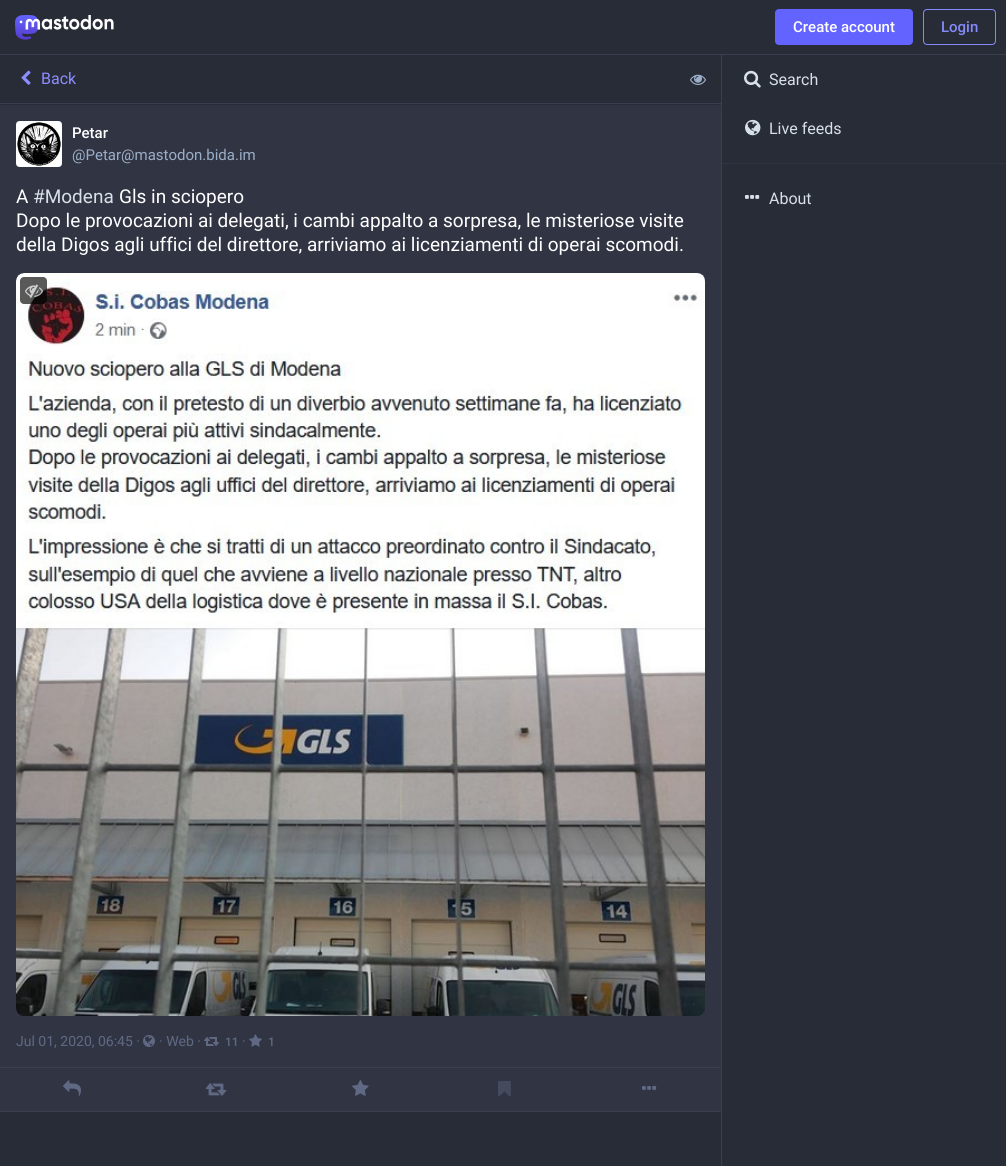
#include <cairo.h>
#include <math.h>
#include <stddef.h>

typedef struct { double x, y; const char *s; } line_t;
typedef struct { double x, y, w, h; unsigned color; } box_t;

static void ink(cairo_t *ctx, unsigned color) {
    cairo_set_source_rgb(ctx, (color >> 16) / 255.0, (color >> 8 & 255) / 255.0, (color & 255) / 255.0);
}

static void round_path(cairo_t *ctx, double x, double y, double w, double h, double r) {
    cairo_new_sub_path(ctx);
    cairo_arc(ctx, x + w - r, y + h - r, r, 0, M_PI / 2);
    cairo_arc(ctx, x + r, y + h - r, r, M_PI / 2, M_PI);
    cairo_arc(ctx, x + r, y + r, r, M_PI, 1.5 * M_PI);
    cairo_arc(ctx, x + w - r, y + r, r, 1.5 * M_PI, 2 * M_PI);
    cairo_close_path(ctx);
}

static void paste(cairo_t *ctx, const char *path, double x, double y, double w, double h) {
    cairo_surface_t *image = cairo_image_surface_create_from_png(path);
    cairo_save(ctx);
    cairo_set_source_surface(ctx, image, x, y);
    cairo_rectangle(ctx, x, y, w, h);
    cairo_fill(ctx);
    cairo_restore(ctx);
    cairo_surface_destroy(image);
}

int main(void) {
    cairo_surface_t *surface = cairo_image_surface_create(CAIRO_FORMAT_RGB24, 1006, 1166);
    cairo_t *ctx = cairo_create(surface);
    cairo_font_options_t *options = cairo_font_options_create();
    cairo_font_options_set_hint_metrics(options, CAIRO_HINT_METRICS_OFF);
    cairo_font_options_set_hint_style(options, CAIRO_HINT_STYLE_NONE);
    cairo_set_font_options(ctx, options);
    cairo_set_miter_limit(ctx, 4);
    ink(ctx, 0x282C37);
    cairo_paint(ctx);
    ink(ctx, 0x393F4F);
    cairo_rectangle(ctx, 0, 54, 1006, 1);
    cairo_fill(ctx);
    paste(ctx, "media/1.png", 15, 15, 99, 25);
    ink(ctx, 0x6364FF);
    round_path(ctx, 775, 9, 138, 36, 4);
    cairo_fill(ctx);
    cairo_select_font_face(ctx, "Roboto Medium", CAIRO_FONT_SLANT_NORMAL, CAIRO_FONT_WEIGHT_NORMAL);
    cairo_set_font_size(ctx, 15);
    ink(ctx, 0xFFFFFF);
    cairo_move_to(ctx, 793, 32);
    cairo_show_text(ctx, "Create account");
    round_path(ctx, 923.5, 9.5, 72, 35, 3.5);
    ink(ctx, 0x858AFA);
    cairo_set_line_width(ctx, 1);
    cairo_stroke(ctx);
    cairo_move_to(ctx, 941, 32);
    cairo_show_text(ctx, "Login");
    ink(ctx, 0x393F4F);
    cairo_rectangle(ctx, 0, 103, 721, 1);
    cairo_fill(ctx);
    paste(ctx, "media/2.png", 21, 70, 10, 15);
    cairo_select_font_face(ctx, "Roboto", CAIRO_FONT_SLANT_NORMAL, CAIRO_FONT_WEIGHT_NORMAL);
    cairo_set_font_size(ctx, 16);
    ink(ctx, 0x8C8DFF);
    cairo_move_to(ctx, 41, 84);
    cairo_show_text(ctx, "Back");
    paste(ctx, "media/3.png", 690, 74, 16, 11);
    ink(ctx, 0x313543);
    cairo_rectangle(ctx, 0, 105, 721, 962);
    cairo_fill(ctx);
    paste(ctx, "media/4.png", 16, 121, 46, 46);
    cairo_select_font_face(ctx, "Roboto Medium", CAIRO_FONT_SLANT_NORMAL, CAIRO_FONT_WEIGHT_NORMAL);
    cairo_set_font_size(ctx, 15);
    ink(ctx, 0xFFFFFF);
    cairo_move_to(ctx, 72, 138);
    cairo_show_text(ctx, "Petar");
    cairo_select_font_face(ctx, "Roboto", CAIRO_FONT_SLANT_NORMAL, CAIRO_FONT_WEIGHT_NORMAL);
    ink(ctx, 0x9BAEC8);
    cairo_move_to(ctx, 72, 160);
    cairo_show_text(ctx, "@Petar@mastodon.bida.im");
    cairo_set_font_size(ctx, 19);
    ink(ctx, 0xFFFFFF);
    cairo_move_to(ctx, 16, 203);
    cairo_show_text(ctx, "A");
    ink(ctx, 0xD9E1E8);
    cairo_move_to(ctx, 33, 203);
    cairo_show_text(ctx, "#Modena");
    ink(ctx, 0xFFFFFF);
    {
        static const line_t items[] = {
            {119, 203, "Gls in sciopero"},
            {16, 227, "Dopo le provocazioni ai delegati, i cambi appalto a sorpresa, le misteriose visite"},
            {16, 251, "della Digos agli uffici del direttore, arriviamo ai licenziamenti di operai scomodi."},
        };
        for (size_t i = 0; i < sizeof items / sizeof *items; i++) {
            cairo_move_to(ctx, items[i].x, items[i].y);
            cairo_show_text(ctx, items[i].s);
        }
    }
    paste(ctx, "media/5.png", 16, 273, 689, 743);
    cairo_set_source_rgba(ctx, 0, 0, 0, 0.65);
    round_path(ctx, 20, 277, 27, 27, 4);
    cairo_fill(ctx);
    paste(ctx, "media/6.png", 25, 284, 18, 14);
    cairo_set_font_size(ctx, 14);
    ink(ctx, 0x606984);
    cairo_move_to(ctx, 16, 1046);
    cairo_show_text(ctx, "Jul 01, 2020, 06:45 ·");
    paste(ctx, "media/7.png", 143, 1035, 12, 12);
    cairo_move_to(ctx, 159, 1046);
    cairo_show_text(ctx, "· Web ·");
    paste(ctx, "media/8.png", 204, 1037, 15, 9);
    cairo_select_font_face(ctx, "Roboto Medium", CAIRO_FONT_SLANT_NORMAL, CAIRO_FONT_WEIGHT_NORMAL);
    cairo_set_font_size(ctx, 12);
    cairo_move_to(ctx, 225, 1046);
    cairo_show_text(ctx, "11");
    cairo_select_font_face(ctx, "Roboto", CAIRO_FONT_SLANT_NORMAL, CAIRO_FONT_WEIGHT_NORMAL);
    cairo_set_font_size(ctx, 14);
    cairo_move_to(ctx, 242, 1046);
    cairo_show_text(ctx, "·");
    paste(ctx, "media/9.png", 249, 1034, 13, 13);
    cairo_select_font_face(ctx, "Roboto Medium", CAIRO_FONT_SLANT_NORMAL, CAIRO_FONT_WEIGHT_NORMAL);
    cairo_set_font_size(ctx, 12);
    cairo_move_to(ctx, 268, 1046);
    cairo_show_text(ctx, "1");
    {
        static const box_t items[] = {
            {0, 1068, 721, 43, 0x313543},
            {0, 1067, 721, 1, 0x393F4F},
            {0, 1111, 721, 1, 0x393F4F},
        };
        for (size_t i = 0; i < sizeof items / sizeof *items; i++) {
            ink(ctx, items[i].color);
            cairo_rectangle(ctx, items[i].x, items[i].y, items[i].w, items[i].h);
            cairo_fill(ctx);
        }
    }
    paste(ctx, "media/10.png", 63, 1080, 18, 17);
    paste(ctx, "media/11.png", 205, 1083, 22, 13);
    paste(ctx, "media/12.png", 352, 1080, 17, 16);
    paste(ctx, "media/13.png", 498, 1081, 13, 15);
    paste(ctx, "media/14.png", 642, 1086, 15, 4);
    cairo_rectangle(ctx, 721, 55, 1, 1111);
    cairo_fill(ctx);
    paste(ctx, "media/15.png", 744, 70, 17, 18);
    cairo_select_font_face(ctx, "Roboto", CAIRO_FONT_SLANT_NORMAL, CAIRO_FONT_WEIGHT_NORMAL);
    cairo_set_font_size(ctx, 16);
    ink(ctx, 0xD9E1E8);
    cairo_move_to(ctx, 769, 85);
    cairo_show_text(ctx, "Search");
    paste(ctx, "media/16.png", 745, 119, 16, 17);
    cairo_move_to(ctx, 769, 134);
    cairo_show_text(ctx, "Live feeds");
    ink(ctx, 0x313543);
    cairo_rectangle(ctx, 722, 163, 284, 1);
    cairo_fill(ctx);
    paste(ctx, "media/17.png", 745, 195, 15, 4);
    ink(ctx, 0xD9E1E8);
    cairo_move_to(ctx, 769, 204);
    cairo_show_text(ctx, "About");
    cairo_surface_write_to_png(surface, "image.png");
    cairo_font_options_destroy(options);
    cairo_destroy(ctx);
    cairo_surface_destroy(surface);
    return 0;
}
